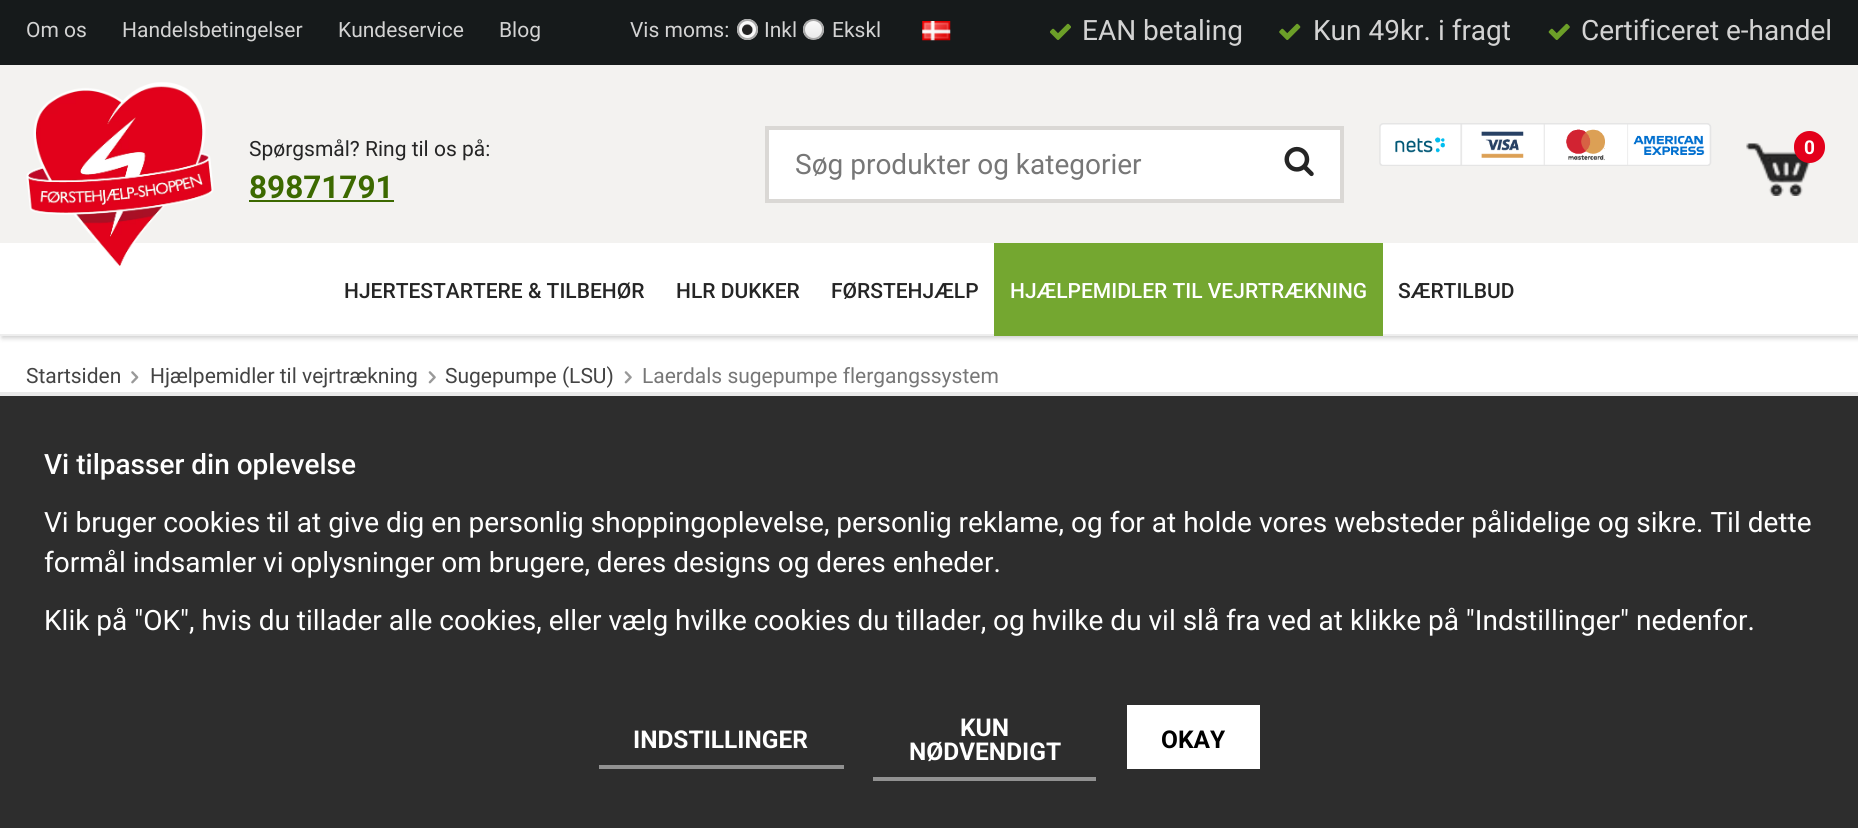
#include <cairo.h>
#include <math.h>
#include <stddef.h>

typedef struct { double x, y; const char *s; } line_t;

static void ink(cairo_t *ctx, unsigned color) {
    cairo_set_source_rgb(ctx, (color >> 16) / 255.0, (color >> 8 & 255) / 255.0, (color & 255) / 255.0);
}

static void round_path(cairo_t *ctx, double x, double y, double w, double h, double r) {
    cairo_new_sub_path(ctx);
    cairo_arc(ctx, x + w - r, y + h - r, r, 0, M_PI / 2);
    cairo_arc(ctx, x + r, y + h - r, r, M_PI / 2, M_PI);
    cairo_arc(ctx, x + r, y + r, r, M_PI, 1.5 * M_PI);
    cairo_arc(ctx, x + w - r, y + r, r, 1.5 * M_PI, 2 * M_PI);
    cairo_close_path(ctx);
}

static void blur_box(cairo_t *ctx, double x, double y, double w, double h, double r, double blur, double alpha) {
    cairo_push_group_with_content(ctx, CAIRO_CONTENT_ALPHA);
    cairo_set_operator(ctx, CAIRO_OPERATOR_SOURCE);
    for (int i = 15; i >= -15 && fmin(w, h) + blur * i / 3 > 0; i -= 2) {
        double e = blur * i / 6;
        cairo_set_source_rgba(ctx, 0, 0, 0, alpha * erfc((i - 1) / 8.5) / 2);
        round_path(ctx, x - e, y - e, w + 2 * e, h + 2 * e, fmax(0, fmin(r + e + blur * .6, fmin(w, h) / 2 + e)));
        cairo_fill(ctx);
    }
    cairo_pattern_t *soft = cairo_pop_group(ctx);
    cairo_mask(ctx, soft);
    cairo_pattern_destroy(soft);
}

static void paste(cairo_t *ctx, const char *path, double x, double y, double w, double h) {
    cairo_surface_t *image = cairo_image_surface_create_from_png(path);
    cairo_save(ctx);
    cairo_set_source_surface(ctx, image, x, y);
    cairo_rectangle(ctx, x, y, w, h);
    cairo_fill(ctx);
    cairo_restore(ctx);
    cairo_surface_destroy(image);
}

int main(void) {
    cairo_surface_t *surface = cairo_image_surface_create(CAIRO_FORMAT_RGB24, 1858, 828);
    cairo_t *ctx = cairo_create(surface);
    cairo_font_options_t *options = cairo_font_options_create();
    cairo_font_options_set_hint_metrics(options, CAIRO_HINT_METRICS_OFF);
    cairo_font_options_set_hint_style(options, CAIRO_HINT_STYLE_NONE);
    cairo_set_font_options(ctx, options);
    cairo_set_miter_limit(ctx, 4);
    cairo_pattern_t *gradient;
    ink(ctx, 0xFFFFFF);
    cairo_paint(ctx);
    ink(ctx, 0x161A1B);
    cairo_rectangle(ctx, 0, 0, 1858, 65);
    cairo_fill(ctx);
    cairo_select_font_face(ctx, "Roboto", CAIRO_FONT_SLANT_NORMAL, CAIRO_FONT_WEIGHT_NORMAL);
    cairo_set_font_size(ctx, 21);
    ink(ctx, 0xD3D3D3);
    {
        static const line_t items[] = {
            {26, 37, "Om os"},
            {122, 37, "Handelsbetingelser"},
            {338, 37, "Kundeservice"},
            {499, 37, "Blog"},
            {630, 37, "Vis moms:"},
        };
        for (size_t i = 0; i < sizeof items / sizeof *items; i++) {
            cairo_move_to(ctx, items[i].x, items[i].y);
            cairo_show_text(ctx, items[i].s);
        }
    }
    ink(ctx, 0xF9F9F9);
    cairo_new_path(ctx);
    cairo_arc(ctx, 747.5, 29.5, 10.5, 0, 2 * M_PI);
    cairo_fill(ctx);
    paste(ctx, "media/1.png", 742, 24, 11, 11);
    cairo_arc(ctx, 747.5, 29.5, 9.5, 0, 2 * M_PI);
    ink(ctx, 0xA9A9A9);
    cairo_stroke(ctx);
    ink(ctx, 0xD3D3D3);
    cairo_move_to(ctx, 764, 37);
    cairo_show_text(ctx, "Inkl");
    cairo_save(ctx);
    round_path(ctx, 803, 19, 21, 21, 10.5);
    cairo_clip(ctx);
    gradient = cairo_pattern_create_linear(814, 21, 814, 39);
    cairo_pattern_add_color_stop_rgba(gradient, 0, 0.976, 0.976, 0.976, 1);
    cairo_pattern_add_color_stop_rgba(gradient, 1, 0.914, 0.914, 0.914, 1);
    cairo_set_source(ctx, gradient);
    cairo_pattern_destroy(gradient);
    cairo_rectangle(ctx, 803, 21, 21, 18);
    cairo_fill(ctx);
    cairo_restore(ctx);
    cairo_arc(ctx, 813.5, 29.5, 9.5, 0, 2 * M_PI);
    ink(ctx, 0xA9A9A9);
    cairo_stroke(ctx);
    ink(ctx, 0xD3D3D3);
    cairo_move_to(ctx, 832, 37);
    cairo_show_text(ctx, "Ekskl");
    paste(ctx, "media/2.png", 922, 21, 29, 20);
    paste(ctx, "media/3.png", 1050, 23, 21, 17);
    cairo_set_font_size(ctx, 28);
    cairo_move_to(ctx, 1082, 40);
    cairo_show_text(ctx, "EAN betaling");
    paste(ctx, "media/4.png", 1279, 23, 22, 17);
    cairo_move_to(ctx, 1313, 40);
    cairo_show_text(ctx, "Kun 49kr. i fragt");
    paste(ctx, "media/5.png", 1548, 23, 22, 17);
    cairo_move_to(ctx, 1581, 40);
    cairo_show_text(ctx, "Certificeret e-handel");
    ink(ctx, 0x000000);
    blur_box(ctx, 2, 245, 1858, 93, 0, 2.5, 0.2);
    ink(ctx, 0xF3F2F0);
    cairo_rectangle(ctx, 0, 65, 1858, 178);
    cairo_fill(ctx);
    ink(ctx, 0xFFFFFF);
    cairo_rectangle(ctx, 0, 243, 1858, 91);
    cairo_fill(ctx);
    paste(ctx, "media/6.png", 26, 82, 188, 185);
    cairo_set_font_size(ctx, 21);
    ink(ctx, 0x252525);
    cairo_move_to(ctx, 249, 156);
    cairo_show_text(ctx, "Spørgsmål? Ring til os på:");
    cairo_select_font_face(ctx, "Roboto", CAIRO_FONT_SLANT_NORMAL, CAIRO_FONT_WEIGHT_BOLD);
    cairo_set_font_size(ctx, 31.5);
    ink(ctx, 0x3C6900);
    cairo_move_to(ctx, 249, 198);
    cairo_show_text(ctx, "89871791");
    cairo_rectangle(ctx, 249, 200, 145, 2);
    cairo_fill(ctx);
    ink(ctx, 0xFFFFFF);
    cairo_rectangle(ctx, 767, 128, 575, 73);
    cairo_fill_preserve(ctx);
    ink(ctx, 0xDAD8D5);
    cairo_set_line_width(ctx, 4);
    cairo_stroke(ctx);
    cairo_select_font_face(ctx, "Roboto", CAIRO_FONT_SLANT_NORMAL, CAIRO_FONT_WEIGHT_NORMAL);
    cairo_set_font_size(ctx, 28);
    ink(ctx, 0x777777);
    cairo_move_to(ctx, 795, 174);
    cairo_show_text(ctx, "Søg produkter og kategorier");
    paste(ctx, "media/7.png", 1284, 146, 30, 31);
    paste(ctx, "media/8.png", 1379, 123, 333, 43);
    paste(ctx, "media/9.png", 1746, 143, 64, 53);
    ink(ctx, 0xE3001B);
    round_path(ctx, 1794, 131, 31, 32, 15.5);
    cairo_fill(ctx);
    cairo_select_font_face(ctx, "Roboto", CAIRO_FONT_SLANT_NORMAL, CAIRO_FONT_WEIGHT_BOLD);
    cairo_set_font_size(ctx, 19);
    ink(ctx, 0xFFFFFF);
    cairo_move_to(ctx, 1804, 154);
    cairo_show_text(ctx, "0");
    ink(ctx, 0xEEEEEE);
    cairo_rectangle(ctx, 0, 334, 1858, 2);
    cairo_fill(ctx);
    cairo_select_font_face(ctx, "Roboto Medium", CAIRO_FONT_SLANT_NORMAL, CAIRO_FONT_WEIGHT_NORMAL);
    cairo_set_font_size(ctx, 21);
    ink(ctx, 0x252525);
    {
        static const line_t items[] = {
            {344, 298, "HJERTESTARTERE & TILBEHØR"},
            {676, 298, "HLR DUKKER"},
            {831, 298, "FØRSTEHJÆLP"},
        };
        for (size_t i = 0; i < sizeof items / sizeof *items; i++) {
            cairo_move_to(ctx, items[i].x, items[i].y);
            cairo_show_text(ctx, items[i].s);
        }
    }
    ink(ctx, 0x74A730);
    cairo_rectangle(ctx, 994, 243, 389, 93);
    cairo_fill(ctx);
    ink(ctx, 0xFFFFFF);
    cairo_move_to(ctx, 1010, 298);
    cairo_show_text(ctx, "HJÆLPEMIDLER TIL VEJRTRÆKNING");
    ink(ctx, 0x252525);
    cairo_move_to(ctx, 1398, 298);
    cairo_show_text(ctx, "SÆRTILBUD");
    cairo_select_font_face(ctx, "Roboto", CAIRO_FONT_SLANT_NORMAL, CAIRO_FONT_WEIGHT_NORMAL);
    ink(ctx, 0x444444);
    cairo_move_to(ctx, 26, 383);
    cairo_show_text(ctx, "Startsiden");
    paste(ctx, "media/10.png", 131, 371, 8, 13);
    cairo_move_to(ctx, 150, 383);
    cairo_show_text(ctx, "Hjælpemidler til vejrtrækning");
    paste(ctx, "media/11.png", 428, 371, 8, 13);
    cairo_move_to(ctx, 445, 383);
    cairo_show_text(ctx, "Sugepumpe (LSU)");
    paste(ctx, "media/11.png", 624, 371, 8, 13);
    ink(ctx, 0x777777);
    cairo_move_to(ctx, 642, 383);
    cairo_show_text(ctx, "Laerdals sugepumpe flergangssystem");
    ink(ctx, 0x2D2D2D);
    cairo_rectangle(ctx, 0, 396, 1858, 432);
    cairo_fill(ctx);
    ink(ctx, 0xE9E9E9);
    cairo_rectangle(ctx, 0, 392, 1858, 4);
    cairo_fill(ctx);
    cairo_select_font_face(ctx, "Roboto Medium", CAIRO_FONT_SLANT_NORMAL, CAIRO_FONT_WEIGHT_NORMAL);
    cairo_set_font_size(ctx, 28);
    ink(ctx, 0xFFFFFF);
    cairo_move_to(ctx, 44, 474);
    cairo_show_text(ctx, "Vi tilpasser din oplevelse");
    cairo_select_font_face(ctx, "Roboto", CAIRO_FONT_SLANT_NORMAL, CAIRO_FONT_WEIGHT_NORMAL);
    {
        static const line_t items[] = {
            {44, 532, "Vi bruger cookies til at give dig en personlig shoppingoplevelse, personlig reklame, og for at holde vores websteder pålidelige og sikre. Til dette"},
            {44, 572, "formål indsamler vi oplysninger om brugere, deres designs og deres enheder."},
            {44, 630, "Klik på \"OK\", hvis du tillader alle cookies, eller vælg hvilke cookies du tillader, og hvilke du vil slå fra ved at klikke på \"Indstillinger\" nedenfor."},
        };
        for (size_t i = 0; i < sizeof items / sizeof *items; i++) {
            cairo_move_to(ctx, items[i].x, items[i].y);
            cairo_show_text(ctx, items[i].s);
        }
    }
    ink(ctx, 0x919191);
    cairo_rectangle(ctx, 599, 765, 245, 4);
    cairo_fill(ctx);
    cairo_select_font_face(ctx, "Roboto", CAIRO_FONT_SLANT_NORMAL, CAIRO_FONT_WEIGHT_BOLD);
    cairo_set_font_size(ctx, 24.5);
    ink(ctx, 0xFFFFFF);
    cairo_move_to(ctx, 633, 748);
    cairo_show_text(ctx, "INDSTILLINGER");
    ink(ctx, 0x919191);
    cairo_rectangle(ctx, 873, 777, 223, 4);
    cairo_fill(ctx);
    ink(ctx, 0xFFFFFF);
    cairo_move_to(ctx, 960, 736);
    cairo_show_text(ctx, "KUN");
    cairo_move_to(ctx, 909, 760);
    cairo_show_text(ctx, "NØDVENDIGT");
    cairo_rectangle(ctx, 1127, 705, 133, 64);
    cairo_fill(ctx);
    ink(ctx, 0x000000);
    cairo_move_to(ctx, 1161, 748);
    cairo_show_text(ctx, "OKAY");
    cairo_surface_write_to_png(surface, "image.png");
    cairo_font_options_destroy(options);
    cairo_destroy(ctx);
    cairo_surface_destroy(surface);
    return 0;
}
